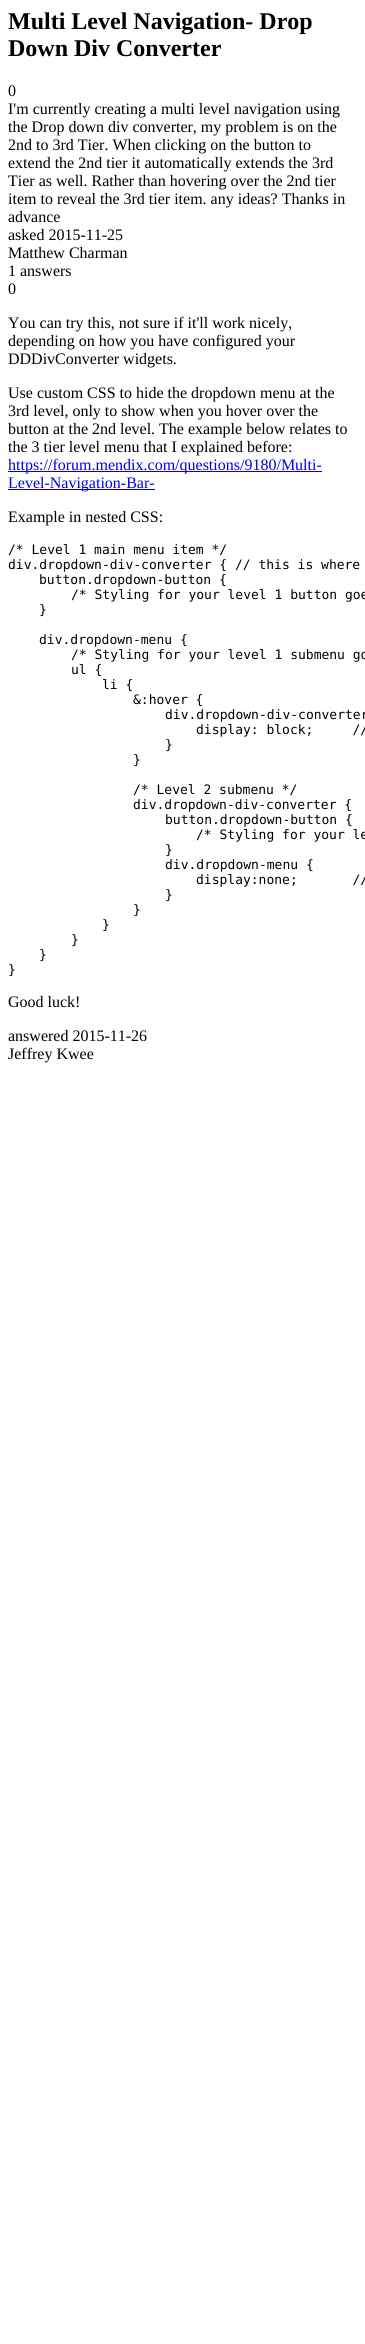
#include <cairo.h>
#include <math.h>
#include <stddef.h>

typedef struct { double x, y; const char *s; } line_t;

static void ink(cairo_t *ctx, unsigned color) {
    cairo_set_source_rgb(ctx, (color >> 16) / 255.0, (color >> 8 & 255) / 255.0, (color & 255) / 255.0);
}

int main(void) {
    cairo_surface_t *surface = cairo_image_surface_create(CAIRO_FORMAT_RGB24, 365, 2344);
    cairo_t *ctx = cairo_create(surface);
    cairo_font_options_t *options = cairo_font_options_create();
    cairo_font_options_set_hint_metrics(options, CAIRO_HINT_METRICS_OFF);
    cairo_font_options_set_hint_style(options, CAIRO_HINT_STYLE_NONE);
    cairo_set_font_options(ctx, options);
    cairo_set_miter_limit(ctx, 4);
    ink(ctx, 0xFFFFFF);
    cairo_paint(ctx);
    cairo_select_font_face(ctx, "Liberation Serif", CAIRO_FONT_SLANT_NORMAL, CAIRO_FONT_WEIGHT_BOLD);
    cairo_set_font_size(ctx, 24);
    ink(ctx, 0x000000);
    cairo_move_to(ctx, 8, 29);
    cairo_show_text(ctx, "Multi Level Navigation- Drop");
    cairo_move_to(ctx, 8, 56);
    cairo_show_text(ctx, "Down Div Converter");
    cairo_select_font_face(ctx, "Liberation Serif", CAIRO_FONT_SLANT_NORMAL, CAIRO_FONT_WEIGHT_NORMAL);
    cairo_set_font_size(ctx, 16);
    {
        static const line_t items[] = {
            {8, 96, "0"},
            {8, 114, "I'm currently creating a multi level navigation using"},
            {8, 132, "the Drop down div converter, my problem is on the"},
            {8, 150, "2nd to 3rd Tier. When clicking on the button to"},
            {8, 168, "extend the 2nd tier it automatically extends the 3rd"},
            {8, 186, "Tier as well. Rather than hovering over the 2nd tier"},
            {8, 204, "item to reveal the 3rd tier item. any ideas? Thanks in"},
            {8, 222, "advance"},
            {8, 240, "asked 2015-11-25"},
            {8, 258, "Matthew Charman"},
            {8, 276, "1 answers"},
            {8, 294, "0"},
            {8, 328, "You can try this, not sure if it'll work nicely,"},
            {8, 346, "depending on how you have configured your"},
            {8, 364, "DDDivConverter widgets."},
            {8, 398, "Use custom CSS to hide the dropdown menu at the"},
            {8, 416, "3rd level, only to show when you hover over the"},
            {8, 434, "button at the 2nd level. The example below relates to"},
            {8, 452, "the 3 tier level menu that I explained before:"},
        };
        for (size_t i = 0; i < sizeof items / sizeof *items; i++) {
            cairo_move_to(ctx, items[i].x, items[i].y);
            cairo_show_text(ctx, items[i].s);
        }
    }
    ink(ctx, 0x0000EE);
    cairo_rectangle(ctx, 8, 471, 314, 1);
    cairo_fill(ctx);
    cairo_move_to(ctx, 8, 470);
    cairo_show_text(ctx, "https://forum.mendix.com/questions/9180/Multi-");
    cairo_rectangle(ctx, 8, 489, 147, 1);
    cairo_fill(ctx);
    cairo_move_to(ctx, 8, 488);
    cairo_show_text(ctx, "Level-Navigation-Bar-");
    ink(ctx, 0x000000);
    cairo_move_to(ctx, 8, 522);
    cairo_show_text(ctx, "Example in nested CSS:");
    cairo_select_font_face(ctx, "DejaVu Sans Mono", CAIRO_FONT_SLANT_NORMAL, CAIRO_FONT_WEIGHT_NORMAL);
    cairo_set_font_size(ctx, 13);
    {
        static const line_t items[] = {
            {8, 554, "/* Level 1 main menu item */"},
            {8, 569, "div.dropdown-div-converter { // this is where"},
            {39, 584, "button.dropdown-button {"},
            {71, 599, "/* Styling for your level 1 button goe"},
            {39, 614, "}"},
            {39, 644, "div.dropdown-menu {"},
            {71, 659, "/* Styling for your level 1 submenu go"},
            {71, 674, "ul {"},
            {102, 689, "li {"},
            {133, 704, "&:hover {"},
            {165, 719, "div.dropdown-div-converter"},
            {196, 734, "display: block;     //"},
            {165, 749, "}"},
            {133, 764, "}"},
            {133, 794, "/* Level 2 submenu */"},
            {133, 809, "div.dropdown-div-converter {"},
            {165, 824, "button.dropdown-button {"},
            {196, 839, "/* Styling for your le"},
            {165, 854, "}"},
            {165, 869, "div.dropdown-menu {"},
            {196, 884, "display:none;       //"},
            {165, 899, "}"},
            {133, 914, "}"},
            {102, 929, "}"},
            {71, 944, "}"},
            {39, 959, "}"},
            {8, 974, "}"},
        };
        for (size_t i = 0; i < sizeof items / sizeof *items; i++) {
            cairo_move_to(ctx, items[i].x, items[i].y);
            cairo_show_text(ctx, items[i].s);
        }
    }
    cairo_select_font_face(ctx, "Liberation Serif", CAIRO_FONT_SLANT_NORMAL, CAIRO_FONT_WEIGHT_NORMAL);
    cairo_set_font_size(ctx, 16);
    {
        static const line_t items[] = {
            {8, 1007, "Good luck!"},
            {8, 1041, "answered 2015-11-26"},
            {8, 1059, "Jeffrey Kwee"},
        };
        for (size_t i = 0; i < sizeof items / sizeof *items; i++) {
            cairo_move_to(ctx, items[i].x, items[i].y);
            cairo_show_text(ctx, items[i].s);
        }
    }
    cairo_surface_write_to_png(surface, "image.png");
    cairo_font_options_destroy(options);
    cairo_destroy(ctx);
    cairo_surface_destroy(surface);
    return 0;
}
